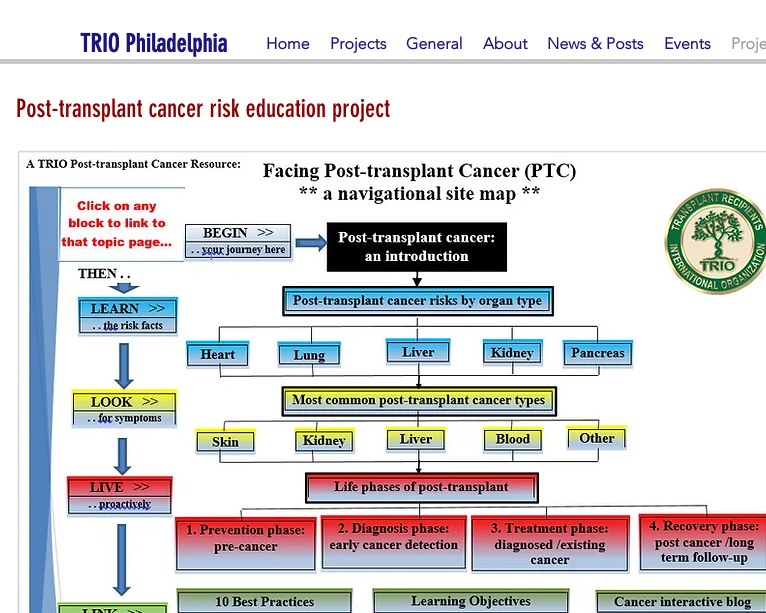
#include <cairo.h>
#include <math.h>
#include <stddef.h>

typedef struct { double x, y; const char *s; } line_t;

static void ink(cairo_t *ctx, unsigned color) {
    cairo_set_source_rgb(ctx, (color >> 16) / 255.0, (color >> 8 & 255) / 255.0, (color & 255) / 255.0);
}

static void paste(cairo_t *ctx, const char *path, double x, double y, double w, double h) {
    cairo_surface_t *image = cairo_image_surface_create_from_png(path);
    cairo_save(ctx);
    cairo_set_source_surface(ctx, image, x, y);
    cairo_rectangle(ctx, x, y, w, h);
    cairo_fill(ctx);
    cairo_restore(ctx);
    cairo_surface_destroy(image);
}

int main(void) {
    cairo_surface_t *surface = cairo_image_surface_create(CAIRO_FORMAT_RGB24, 766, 613);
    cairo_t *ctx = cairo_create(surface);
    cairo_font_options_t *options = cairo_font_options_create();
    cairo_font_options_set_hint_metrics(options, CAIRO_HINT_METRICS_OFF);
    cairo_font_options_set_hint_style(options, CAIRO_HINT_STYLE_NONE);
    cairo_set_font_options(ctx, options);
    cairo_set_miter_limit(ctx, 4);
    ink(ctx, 0xFFFFFF);
    cairo_paint(ctx);
    cairo_select_font_face(ctx, "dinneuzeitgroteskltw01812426", CAIRO_FONT_SLANT_NORMAL, CAIRO_FONT_WEIGHT_BOLD);
    cairo_set_font_size(ctx, 25);
    ink(ctx, 0x18157C);
    cairo_move_to(ctx, 80, 52);
    cairo_show_text(ctx, "TRIO Philadelphia");
    cairo_select_font_face(ctx, "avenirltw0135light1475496", CAIRO_FONT_SLANT_NORMAL, CAIRO_FONT_WEIGHT_BOLD);
    cairo_set_font_size(ctx, 16);
    {
        static const line_t items[] = {
            {266, 49, "Home"},
            {330, 49, "Projects"},
            {406, 49, "General"},
            {483, 49, "About"},
            {547, 49, "News & Posts"},
            {664, 49, "Events"},
        };
        for (size_t i = 0; i < sizeof items / sizeof *items; i++) {
            cairo_move_to(ctx, items[i].x, items[i].y);
            cairo_show_text(ctx, items[i].s);
        }
    }
    ink(ctx, 0x999997);
    cairo_move_to(ctx, 731, 49);
    cairo_show_text(ctx, "Proje");
    ink(ctx, 0xC7C7C7);
    cairo_rectangle(ctx, 0, 59, 766, 5);
    cairo_fill(ctx);
    cairo_select_font_face(ctx, "dinneuzeitgroteskltw01812426", CAIRO_FONT_SLANT_NORMAL, CAIRO_FONT_WEIGHT_NORMAL);
    cairo_set_font_size(ctx, 25);
    ink(ctx, 0x8B0000);
    cairo_move_to(ctx, 16, 117);
    cairo_show_text(ctx, "Post-transplant cancer risk education project");
    paste(ctx, "media/1.png", 17, 150, 749, 463);
    cairo_surface_write_to_png(surface, "image.png");
    cairo_font_options_destroy(options);
    cairo_destroy(ctx);
    cairo_surface_destroy(surface);
    return 0;
}
